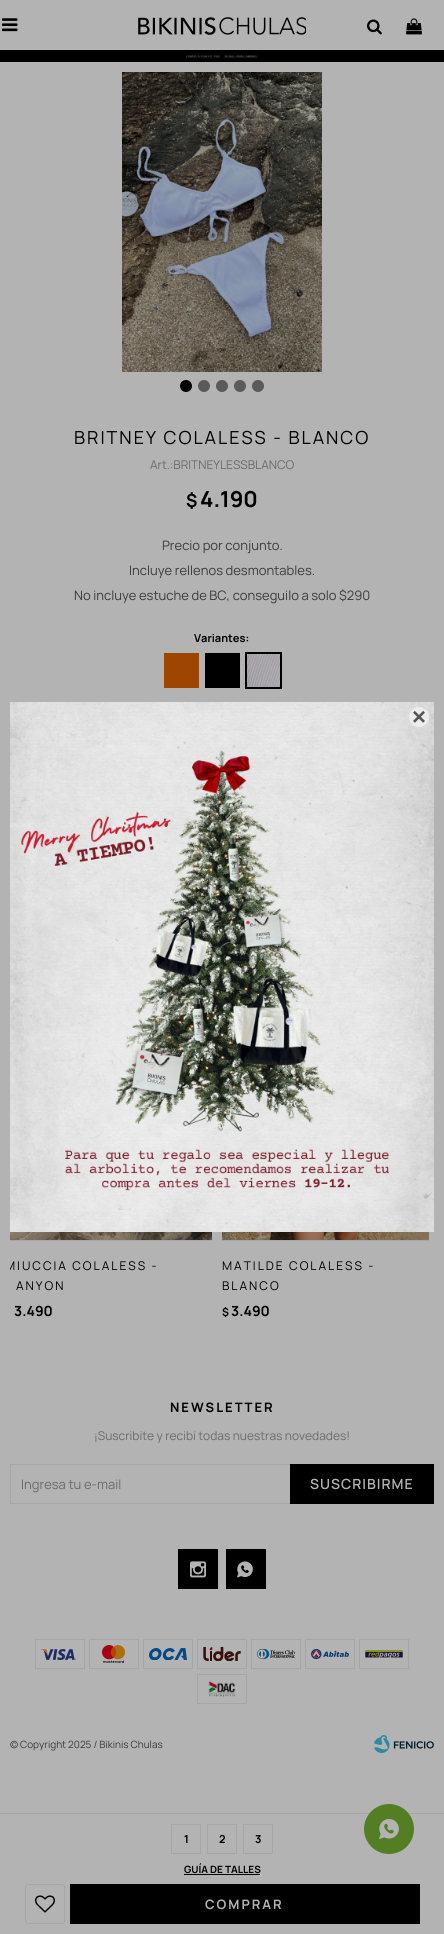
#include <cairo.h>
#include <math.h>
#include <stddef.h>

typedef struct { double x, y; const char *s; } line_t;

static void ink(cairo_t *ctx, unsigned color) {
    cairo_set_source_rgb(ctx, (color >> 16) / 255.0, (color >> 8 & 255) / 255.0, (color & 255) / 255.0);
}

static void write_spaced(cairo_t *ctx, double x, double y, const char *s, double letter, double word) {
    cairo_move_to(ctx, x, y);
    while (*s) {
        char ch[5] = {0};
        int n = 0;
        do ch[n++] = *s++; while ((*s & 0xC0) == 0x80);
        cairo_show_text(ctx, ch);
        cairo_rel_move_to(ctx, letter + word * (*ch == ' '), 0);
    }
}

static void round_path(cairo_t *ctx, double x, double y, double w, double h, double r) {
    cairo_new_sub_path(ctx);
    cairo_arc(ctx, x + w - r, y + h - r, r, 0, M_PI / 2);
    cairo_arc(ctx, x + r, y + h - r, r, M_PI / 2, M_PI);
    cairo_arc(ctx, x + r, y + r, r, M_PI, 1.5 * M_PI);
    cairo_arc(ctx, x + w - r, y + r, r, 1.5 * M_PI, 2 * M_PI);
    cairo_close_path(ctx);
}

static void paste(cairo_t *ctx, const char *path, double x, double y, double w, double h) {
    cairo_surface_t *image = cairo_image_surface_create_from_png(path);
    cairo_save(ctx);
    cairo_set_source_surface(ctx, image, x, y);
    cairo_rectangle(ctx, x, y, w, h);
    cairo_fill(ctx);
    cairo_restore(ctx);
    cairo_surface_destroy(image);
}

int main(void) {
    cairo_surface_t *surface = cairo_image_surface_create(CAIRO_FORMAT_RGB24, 444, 1934);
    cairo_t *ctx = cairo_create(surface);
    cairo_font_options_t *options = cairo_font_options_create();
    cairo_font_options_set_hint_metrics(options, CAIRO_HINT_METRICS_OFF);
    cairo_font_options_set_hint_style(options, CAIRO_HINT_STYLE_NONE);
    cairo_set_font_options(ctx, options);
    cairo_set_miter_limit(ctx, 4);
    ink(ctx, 0xB3B3B3);
    cairo_paint(ctx);
    paste(ctx, "media/1.png", 2, 18, 16, 14);
    paste(ctx, "media/2.png", 138, 17, 168, 18);
    paste(ctx, "media/3.png", 367, 19, 15, 16);
    paste(ctx, "media/4.png", 406, 18, 16, 17);
    paste(ctx, "media/5.png", 0, 50, 444, 12);
    paste(ctx, "media/6.png", 122, 72, 200, 300);
    ink(ctx, 0x000000);
    cairo_arc(ctx, 186, 386, 6, 0, 2 * M_PI);
    cairo_fill(ctx);
    ink(ctx, 0x5A5A5A);
    cairo_arc(ctx, 204, 386, 6, 0, 2 * M_PI);
    cairo_fill(ctx);
    cairo_arc(ctx, 222, 386, 6, 0, 2 * M_PI);
    cairo_fill(ctx);
    cairo_arc(ctx, 240, 386, 6, 0, 2 * M_PI);
    cairo_fill(ctx);
    cairo_arc(ctx, 258, 386, 6, 0, 2 * M_PI);
    cairo_fill(ctx);
    cairo_select_font_face(ctx, "Manrope", CAIRO_FONT_SLANT_NORMAL, CAIRO_FONT_WEIGHT_NORMAL);
    cairo_set_font_size(ctx, 18);
    ink(ctx, 0x000000);
    write_spaced(ctx, 74, 444, "BRITNEY COLALESS - BLANCO", 2, 0);
    cairo_set_font_size(ctx, 12);
    ink(ctx, 0x6B6B6B);
    cairo_move_to(ctx, 150, 469);
    cairo_show_text(ctx, "Art.:BRITNEYLESSBLANCO");
    cairo_select_font_face(ctx, "Manrope", CAIRO_FONT_SLANT_NORMAL, CAIRO_FONT_WEIGHT_BOLD);
    cairo_set_font_size(ctx, 18);
    ink(ctx, 0x000000);
    cairo_move_to(ctx, 186, 507);
    cairo_show_text(ctx, "$");
    cairo_set_font_size(ctx, 22);
    cairo_move_to(ctx, 200, 507);
    cairo_show_text(ctx, "4.190");
    cairo_select_font_face(ctx, "Manrope", CAIRO_FONT_SLANT_NORMAL, CAIRO_FONT_WEIGHT_NORMAL);
    cairo_set_font_size(ctx, 13);
    ink(ctx, 0x3B3B3B);
    {
        static const line_t items[] = {
            {162, 550, "Precio por conjunto."},
            {129, 575, "Incluye rellenos desmontables."},
            {74, 600, "No incluye estuche de BC, conseguilo a solo $290"},
        };
        for (size_t i = 0; i < sizeof items / sizeof *items; i++) {
            cairo_move_to(ctx, items[i].x, items[i].y);
            cairo_show_text(ctx, items[i].s);
        }
    }
    cairo_select_font_face(ctx, "Manrope", CAIRO_FONT_SLANT_NORMAL, CAIRO_FONT_WEIGHT_BOLD);
    cairo_set_font_size(ctx, 11);
    ink(ctx, 0x000000);
    cairo_move_to(ctx, 194, 642);
    cairo_show_text(ctx, "Variantes:");
    ink(ctx, 0x9E4501);
    cairo_rectangle(ctx, 164, 653, 35, 35);
    cairo_fill(ctx);
    ink(ctx, 0x000000);
    cairo_rectangle(ctx, 205, 653, 35, 35);
    cairo_fill(ctx);
    paste(ctx, "media/7.png", 247, 654, 33, 33);
    cairo_rectangle(ctx, 246, 653, 35, 35);
    cairo_stroke(ctx);
    ink(ctx, 0xA6A6A6);
    cairo_rectangle(ctx, 0, 1813, 444, 1);
    cairo_fill(ctx);
    cairo_rectangle(ctx, 171.5, 1824.5, 29, 29);
    cairo_set_line_width(ctx, 1);
    cairo_stroke(ctx);
    ink(ctx, 0x000000);
    cairo_move_to(ctx, 184, 1843);
    cairo_show_text(ctx, "1");
    cairo_rectangle(ctx, 207.5, 1824.5, 29, 29);
    ink(ctx, 0xA6A6A6);
    cairo_stroke(ctx);
    ink(ctx, 0x000000);
    cairo_move_to(ctx, 219, 1843);
    cairo_show_text(ctx, "2");
    cairo_rectangle(ctx, 243.5, 1824.5, 29, 29);
    ink(ctx, 0xA6A6A6);
    cairo_stroke(ctx);
    ink(ctx, 0x000000);
    cairo_move_to(ctx, 255, 1843);
    cairo_show_text(ctx, "3");
    cairo_set_font_size(ctx, 10);
    cairo_move_to(ctx, 184, 1873);
    cairo_show_text(ctx, "GUÍA DE TALLES");
    cairo_rectangle(ctx, 184, 1874, 76, 1);
    cairo_fill(ctx);
    round_path(ctx, 25.5, 1884.5, 39, 39, 2.5);
    ink(ctx, 0xA6A6A6);
    cairo_stroke(ctx);
    paste(ctx, "media/8.png", 35, 1895, 20, 18);
    ink(ctx, 0x000000);
    cairo_rectangle(ctx, 70, 1884, 350, 40);
    cairo_fill(ctx);
    cairo_set_font_size(ctx, 13);
    ink(ctx, 0xB3B3B3);
    write_spaced(ctx, 205, 1909, "COMPRAR", 2, 0);
    paste(ctx, "media/9.png", 10, 1232, 202, 8);
    ink(ctx, 0xA6A6A6);
    cairo_rectangle(ctx, 10, 1240, 202, 1);
    cairo_fill(ctx);
    cairo_save(ctx);
    cairo_rectangle(ctx, 10, 930, 424, 407);
    cairo_clip(ctx);
    cairo_select_font_face(ctx, "Manrope", CAIRO_FONT_SLANT_NORMAL, CAIRO_FONT_WEIGHT_NORMAL);
    cairo_set_font_size(ctx, 12);
    ink(ctx, 0x000000);
    write_spaced(ctx, 5, 1270, "MIUCCIA COLALESS -", 2, 0);
    cairo_restore(ctx);
    cairo_select_font_face(ctx, "Manrope", CAIRO_FONT_SLANT_NORMAL, CAIRO_FONT_WEIGHT_NORMAL);
    cairo_set_font_size(ctx, 12);
    ink(ctx, 0x000000);
    write_spaced(ctx, 16, 1290, "ANYON", 2, 0);
    cairo_select_font_face(ctx, "Manrope", CAIRO_FONT_SLANT_NORMAL, CAIRO_FONT_WEIGHT_BOLD);
    cairo_set_font_size(ctx, 14);
    cairo_move_to(ctx, 14, 1316);
    cairo_show_text(ctx, "3.490");
    paste(ctx, "media/10.png", 222, 1232, 207, 8);
    ink(ctx, 0xA6A6A6);
    cairo_rectangle(ctx, 222, 1240, 207, 1);
    cairo_fill(ctx);
    cairo_select_font_face(ctx, "Manrope", CAIRO_FONT_SLANT_NORMAL, CAIRO_FONT_WEIGHT_NORMAL);
    cairo_set_font_size(ctx, 12);
    ink(ctx, 0x000000);
    write_spaced(ctx, 222, 1270, "MATILDE COLALESS -", 2, 0);
    write_spaced(ctx, 222, 1290, "BLANCO", 2, 0);
    cairo_select_font_face(ctx, "Manrope", CAIRO_FONT_SLANT_NORMAL, CAIRO_FONT_WEIGHT_BOLD);
    cairo_set_font_size(ctx, 11);
    cairo_move_to(ctx, 222, 1316);
    cairo_show_text(ctx, "$");
    cairo_set_font_size(ctx, 14);
    cairo_move_to(ctx, 231, 1316);
    cairo_show_text(ctx, "3.490");
    cairo_set_font_size(ctx, 13);
    write_spaced(ctx, 170, 1412, "NEWSLETTER", 2, 0);
    cairo_select_font_face(ctx, "Manrope", CAIRO_FONT_SLANT_NORMAL, CAIRO_FONT_WEIGHT_NORMAL);
    cairo_set_font_size(ctx, 12);
    ink(ctx, 0x6B6B6B);
    cairo_move_to(ctx, 94, 1440);
    cairo_show_text(ctx, "¡Suscribite y recibí todas nuestras novedades!");
    cairo_rectangle(ctx, 10.5, 1464.5, 423, 39);
    ink(ctx, 0xA6A6A6);
    cairo_stroke(ctx);
    cairo_set_font_size(ctx, 13);
    ink(ctx, 0x6B6B6B);
    cairo_move_to(ctx, 21, 1489);
    cairo_show_text(ctx, "Ingresa tu e-mail");
    ink(ctx, 0x000000);
    cairo_rectangle(ctx, 290, 1464, 144, 40);
    cairo_fill(ctx);
    cairo_select_font_face(ctx, "Manrope SemiBold", CAIRO_FONT_SLANT_NORMAL, CAIRO_FONT_WEIGHT_NORMAL);
    cairo_set_font_size(ctx, 14);
    ink(ctx, 0xB3B3B3);
    write_spaced(ctx, 310, 1489, "SUSCRIBIRME", 1, 0);
    ink(ctx, 0x000000);
    cairo_rectangle(ctx, 178, 1549, 40, 40);
    cairo_fill(ctx);
    paste(ctx, "media/11.png", 190, 1561, 16, 17);
    cairo_rectangle(ctx, 226, 1549, 40, 40);
    cairo_fill(ctx);
    paste(ctx, "media/12.png", 237, 1561, 16, 17);
    cairo_rectangle(ctx, 35.5, 1639.5, 49, 29);
    ink(ctx, 0xA6A6A6);
    cairo_stroke(ctx);
    paste(ctx, "media/13.png", 41, 1649, 36, 11);
    cairo_rectangle(ctx, 89.5, 1639.5, 49, 29);
    cairo_stroke(ctx);
    paste(ctx, "media/14.png", 102, 1645, 24, 18);
    cairo_rectangle(ctx, 143.5, 1639.5, 49, 29);
    cairo_stroke(ctx);
    paste(ctx, "media/15.png", 149, 1648, 38, 12);
    cairo_rectangle(ctx, 197.5, 1639.5, 49, 29);
    cairo_stroke(ctx);
    paste(ctx, "media/16.png", 203, 1647, 38, 14);
    cairo_rectangle(ctx, 251.5, 1639.5, 49, 29);
    cairo_stroke(ctx);
    paste(ctx, "media/17.png", 257, 1649, 38, 10);
    cairo_rectangle(ctx, 305.5, 1639.5, 49, 29);
    cairo_stroke(ctx);
    paste(ctx, "media/18.png", 311, 1649, 38, 10);
    cairo_rectangle(ctx, 359.5, 1639.5, 49, 29);
    cairo_stroke(ctx);
    paste(ctx, "media/19.png", 365, 1650, 38, 8);
    cairo_rectangle(ctx, 197.5, 1674.5, 49, 29);
    cairo_stroke(ctx);
    paste(ctx, "media/20.png", 208, 1681, 28, 16);
    cairo_select_font_face(ctx, "Manrope", CAIRO_FONT_SLANT_NORMAL, CAIRO_FONT_WEIGHT_NORMAL);
    cairo_set_font_size(ctx, 10);
    ink(ctx, 0x3B3B3B);
    cairo_move_to(ctx, 10, 1748);
    cairo_show_text(ctx, "© Copyright 2025 / Bikinis Chulas");
    paste(ctx, "media/21.png", 374, 1735, 60, 18);
    paste(ctx, "media/22.png", 10, 702, 424, 530);
    cairo_set_source_rgba(ctx, 1, 1, 1, 0.5);
    cairo_arc(ctx, 419, 717, 10, 0, 2 * M_PI);
    cairo_fill(ctx);
    paste(ctx, "media/23.png", 413, 710, 12, 13);
    ink(ctx, 0x547E23);
    cairo_arc(ctx, 389, 1829, 25, 0, 2 * M_PI);
    cairo_fill(ctx);
    paste(ctx, "media/24.png", 379, 1819, 20, 20);
    cairo_surface_write_to_png(surface, "image.png");
    cairo_font_options_destroy(options);
    cairo_destroy(ctx);
    cairo_surface_destroy(surface);
    return 0;
}
